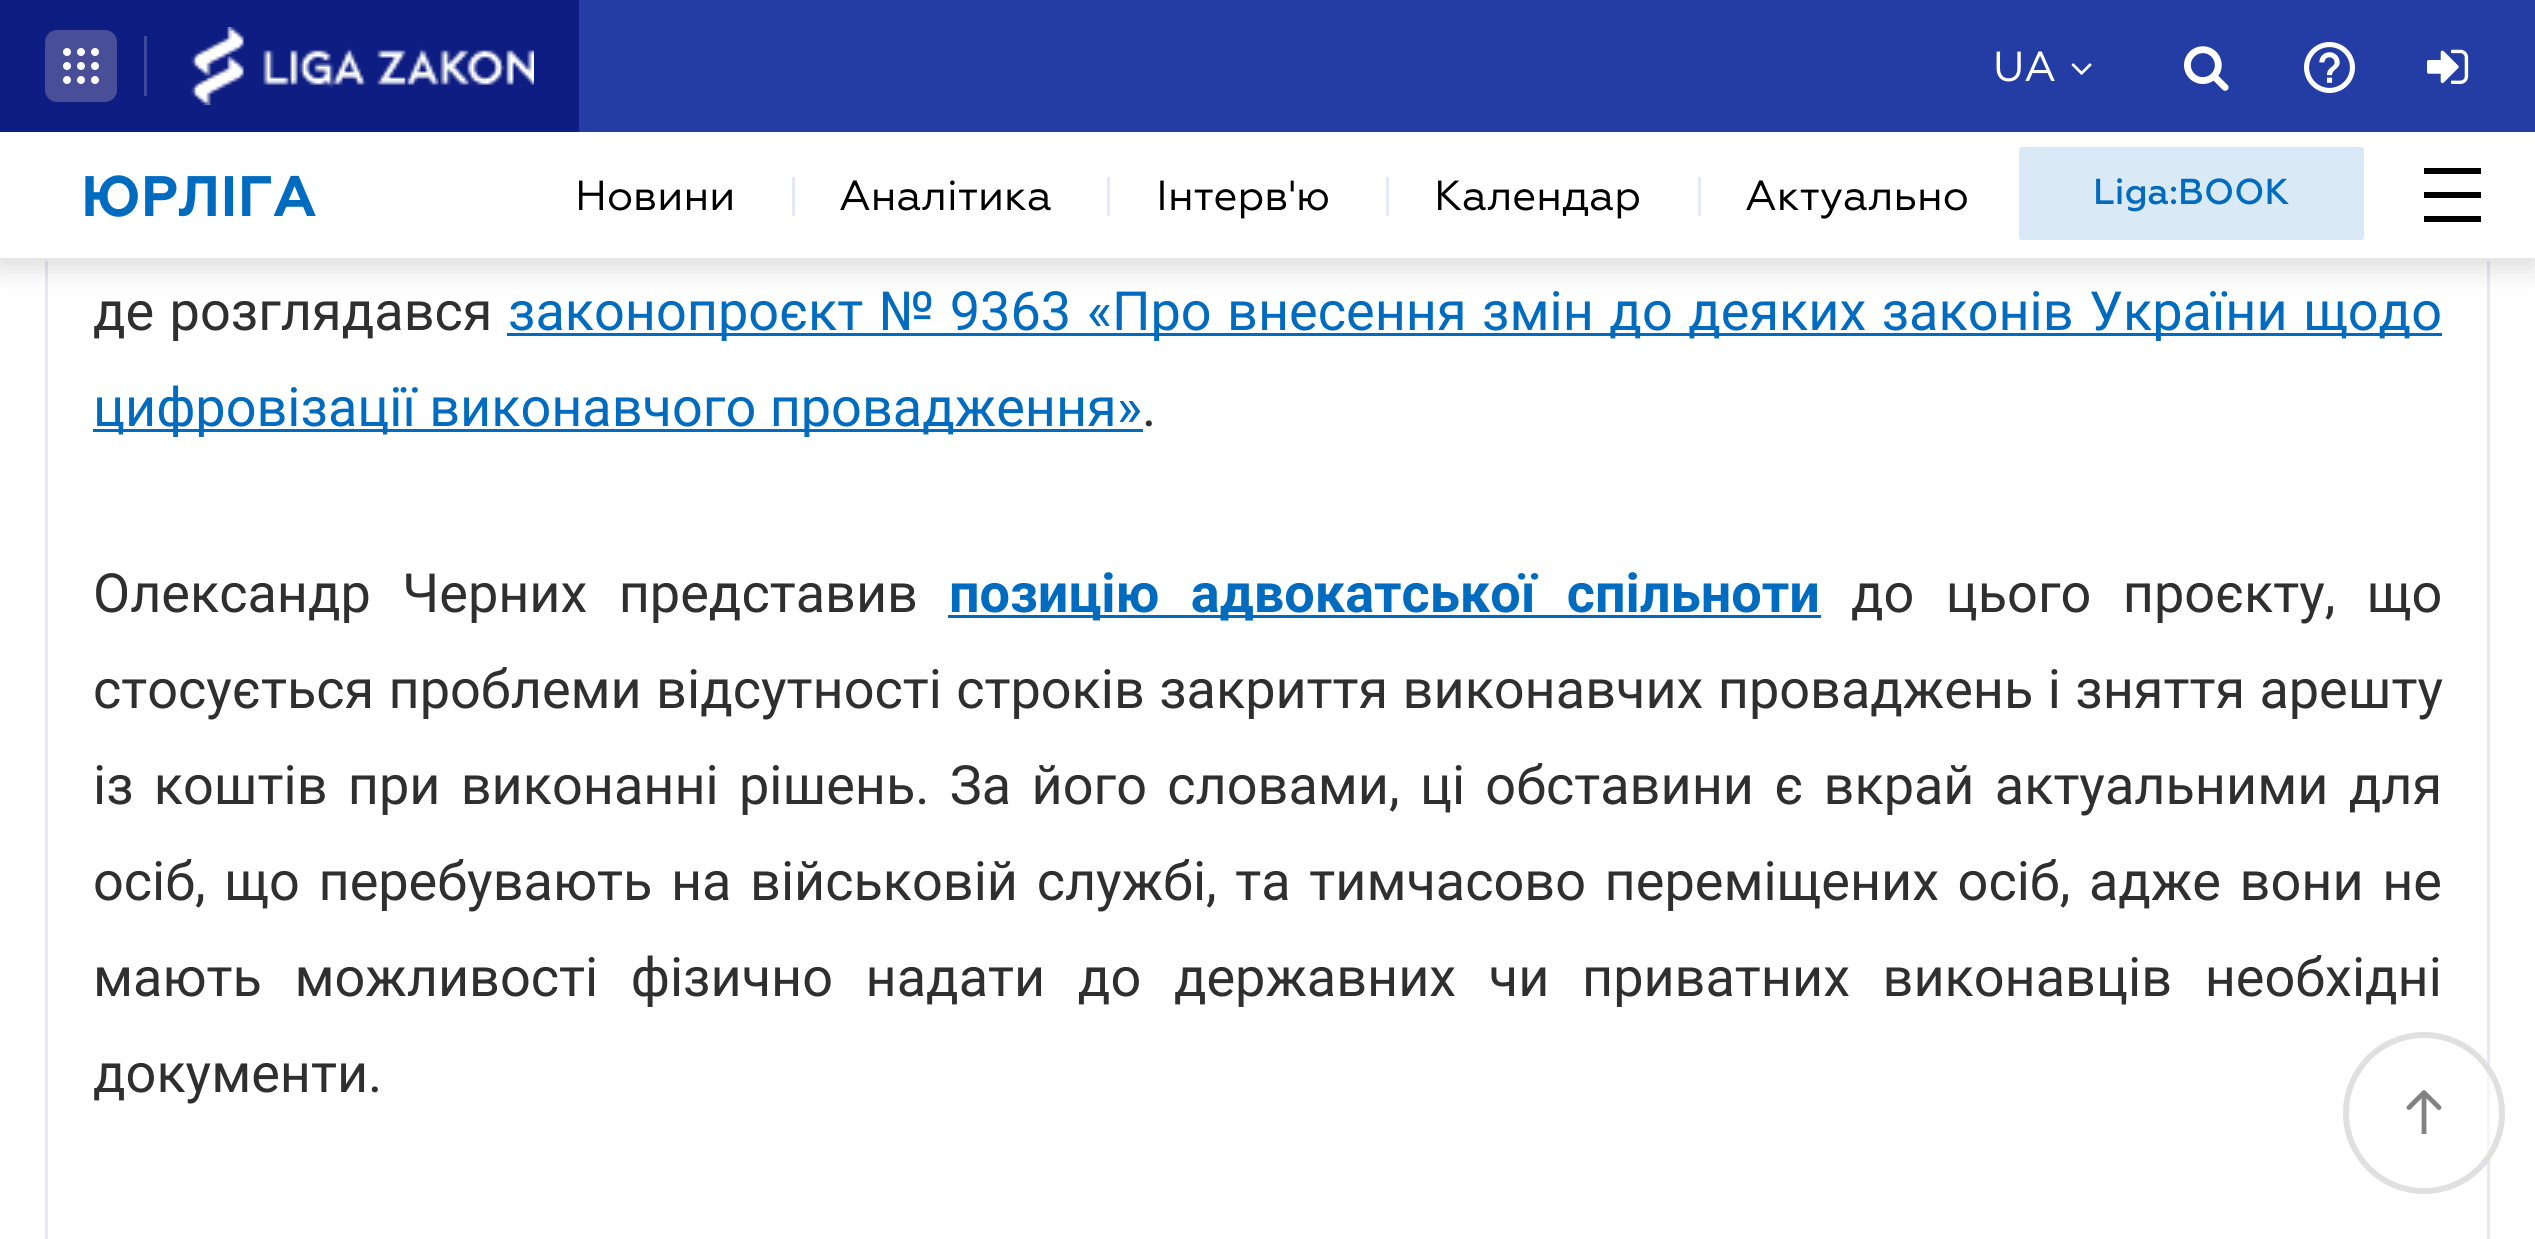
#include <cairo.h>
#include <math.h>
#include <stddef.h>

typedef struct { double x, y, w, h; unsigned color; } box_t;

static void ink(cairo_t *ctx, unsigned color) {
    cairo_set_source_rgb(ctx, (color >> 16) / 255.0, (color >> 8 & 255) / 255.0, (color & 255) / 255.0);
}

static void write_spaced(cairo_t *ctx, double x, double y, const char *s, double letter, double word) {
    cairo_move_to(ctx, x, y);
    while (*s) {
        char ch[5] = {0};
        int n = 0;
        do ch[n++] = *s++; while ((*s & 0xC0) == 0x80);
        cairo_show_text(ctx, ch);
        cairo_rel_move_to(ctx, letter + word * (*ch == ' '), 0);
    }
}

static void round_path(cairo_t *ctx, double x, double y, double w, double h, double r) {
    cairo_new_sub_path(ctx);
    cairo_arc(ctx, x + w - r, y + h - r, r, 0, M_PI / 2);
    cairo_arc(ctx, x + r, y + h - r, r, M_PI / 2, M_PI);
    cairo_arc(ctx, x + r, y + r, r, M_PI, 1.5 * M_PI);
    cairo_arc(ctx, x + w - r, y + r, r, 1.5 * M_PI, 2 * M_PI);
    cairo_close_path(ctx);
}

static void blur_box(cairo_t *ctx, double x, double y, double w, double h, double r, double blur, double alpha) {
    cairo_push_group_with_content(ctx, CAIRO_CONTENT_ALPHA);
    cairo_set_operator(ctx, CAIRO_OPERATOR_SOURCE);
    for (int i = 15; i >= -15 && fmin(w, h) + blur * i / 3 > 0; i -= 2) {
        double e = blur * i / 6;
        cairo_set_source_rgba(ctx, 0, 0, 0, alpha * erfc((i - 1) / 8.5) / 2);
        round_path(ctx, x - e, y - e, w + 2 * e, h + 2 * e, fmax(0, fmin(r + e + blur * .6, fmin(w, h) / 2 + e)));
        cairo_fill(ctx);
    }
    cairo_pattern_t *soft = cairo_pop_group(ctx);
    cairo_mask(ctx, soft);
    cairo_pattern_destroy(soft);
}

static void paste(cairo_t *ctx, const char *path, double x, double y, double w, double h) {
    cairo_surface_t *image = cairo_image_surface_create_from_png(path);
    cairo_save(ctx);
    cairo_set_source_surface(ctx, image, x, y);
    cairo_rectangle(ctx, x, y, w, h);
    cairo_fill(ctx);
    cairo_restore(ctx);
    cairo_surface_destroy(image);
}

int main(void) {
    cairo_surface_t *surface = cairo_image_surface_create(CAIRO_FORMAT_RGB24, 2535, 1239);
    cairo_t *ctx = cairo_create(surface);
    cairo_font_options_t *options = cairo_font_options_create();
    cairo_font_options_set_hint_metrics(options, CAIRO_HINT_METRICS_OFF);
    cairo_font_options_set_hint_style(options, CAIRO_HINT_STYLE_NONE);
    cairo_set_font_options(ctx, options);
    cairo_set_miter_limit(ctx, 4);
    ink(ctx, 0xFFFFFF);
    cairo_paint(ctx);
    cairo_rectangle(ctx, 46.5, -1.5, 2442, 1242);
    ink(ctx, 0xE6E8F7);
    cairo_set_line_width(ctx, 3);
    cairo_stroke(ctx);
    ink(ctx, 0x000000);
    blur_box(ctx, 0, 138, 2535, 129, 0, 15, 0.15);
    ink(ctx, 0x243DA4);
    cairo_rectangle(ctx, 579, 0, 1956, 132);
    cairo_fill(ctx);
    ink(ctx, 0x0E1D82);
    cairo_rectangle(ctx, 0, 0, 579, 132);
    cairo_fill(ctx);
    ink(ctx, 0x484F98);
    round_path(ctx, 45, 30, 72, 72, 12);
    cairo_fill(ctx);
    paste(ctx, "media/1.png", 63, 48, 36, 36);
    ink(ctx, 0x3E4A9B);
    cairo_rectangle(ctx, 144, 36, 3, 60);
    cairo_fill(ctx);
    paste(ctx, "media/2.png", 191, 27, 343, 78);
    cairo_select_font_face(ctx, "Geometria", CAIRO_FONT_SLANT_NORMAL, CAIRO_FONT_WEIGHT_NORMAL);
    cairo_set_font_size(ctx, 42);
    ink(ctx, 0xFFFFFF);
    cairo_move_to(ctx, 1993, 81);
    cairo_show_text(ctx, "UA");
    paste(ctx, "media/3.png", 2071, 63, 21, 12);
    paste(ctx, "media/4.png", 2184, 46, 45, 45);
    paste(ctx, "media/5.png", 2304, 42, 51, 51);
    paste(ctx, "media/6.png", 2427, 49, 42, 35);
    cairo_rectangle(ctx, 0, 132, 2535, 126);
    cairo_fill(ctx);
    ink(ctx, 0xE6E6E6);
    cairo_rectangle(ctx, 0, 258, 2535, 3);
    cairo_fill(ctx);
    cairo_select_font_face(ctx, "Geometria", CAIRO_FONT_SLANT_NORMAL, CAIRO_FONT_WEIGHT_BOLD);
    cairo_set_font_size(ctx, 57);
    ink(ctx, 0x006BBF);
    cairo_move_to(ctx, 81, 216);
    cairo_show_text(ctx, "ЮРЛІГА");
    cairo_select_font_face(ctx, "Geometria", CAIRO_FONT_SLANT_NORMAL, CAIRO_FONT_WEIGHT_NORMAL);
    cairo_set_font_size(ctx, 42);
    ink(ctx, 0x000000);
    cairo_move_to(ctx, 575, 210);
    cairo_show_text(ctx, "Новини");
    ink(ctx, 0xE6E8F7);
    cairo_rectangle(ctx, 792, 177, 3, 39);
    cairo_fill(ctx);
    ink(ctx, 0x000000);
    cairo_move_to(ctx, 839, 210);
    cairo_show_text(ctx, "Аналітика");
    ink(ctx, 0xE6E8F7);
    cairo_rectangle(ctx, 1107, 177, 3, 39);
    cairo_fill(ctx);
    ink(ctx, 0x000000);
    cairo_move_to(ctx, 1156, 210);
    cairo_show_text(ctx, "Інтерв'ю");
    ink(ctx, 0xE6E8F7);
    cairo_rectangle(ctx, 1386, 177, 3, 39);
    cairo_fill(ctx);
    ink(ctx, 0x000000);
    cairo_move_to(ctx, 1434, 210);
    cairo_show_text(ctx, "Календар");
    ink(ctx, 0xE6E8F7);
    cairo_rectangle(ctx, 1698, 177, 3, 39);
    cairo_fill(ctx);
    ink(ctx, 0x000000);
    cairo_move_to(ctx, 1745, 210);
    cairo_show_text(ctx, "Актуально");
    ink(ctx, 0xD9E9F5);
    round_path(ctx, 2019, 147, 345, 93, 3);
    cairo_fill(ctx);
    cairo_select_font_face(ctx, "Geometria Medium", CAIRO_FONT_SLANT_NORMAL, CAIRO_FONT_WEIGHT_NORMAL);
    cairo_set_font_size(ctx, 36);
    ink(ctx, 0x006BBF);
    cairo_move_to(ctx, 2093, 204);
    cairo_show_text(ctx, "Liga:BOOK");
    {
        static const box_t items[] = {
            {2424, 168, 57, 6, 0x000000},
            {2424, 192, 57, 6, 0x000000},
            {2424, 216, 57, 6, 0x000000},
        };
        for (size_t i = 0; i < sizeof items / sizeof *items; i++) {
            ink(ctx, items[i].color);
            cairo_rectangle(ctx, items[i].x, items[i].y, items[i].w, items[i].h);
            cairo_fill(ctx);
        }
    }
    cairo_select_font_face(ctx, "Roboto", CAIRO_FONT_SLANT_NORMAL, CAIRO_FONT_WEIGHT_NORMAL);
    cairo_set_font_size(ctx, 54);
    ink(ctx, 0x2F2F2F);
    write_spaced(ctx, 93, 330, "де розглядався", 0, 2);
    ink(ctx, 0x006BBF);
    cairo_rectangle(ctx, 507, 333, 1935, 3);
    cairo_fill(ctx);
    write_spaced(ctx, 508, 330, "законопроєкт № 9363 «Про внесення змін до деяких законів України щодо", 0, 2.1);
    cairo_rectangle(ctx, 93, 429, 1050, 3);
    cairo_fill(ctx);
    cairo_move_to(ctx, 93, 426);
    cairo_show_text(ctx, "цифровізації виконавчого провадження»");
    ink(ctx, 0x2F2F2F);
    cairo_move_to(ctx, 1142, 426);
    cairo_show_text(ctx, ".");
    write_spaced(ctx, 93, 612, "Олександр Черних представив", 0, 18);
    ink(ctx, 0x006BBF);
    cairo_rectangle(ctx, 948, 615, 873, 3);
    cairo_fill(ctx);
    cairo_select_font_face(ctx, "Roboto", CAIRO_FONT_SLANT_NORMAL, CAIRO_FONT_WEIGHT_BOLD);
    write_spaced(ctx, 949, 612, "позицію адвокатської спільноти", 0, 18);
    cairo_select_font_face(ctx, "Roboto", CAIRO_FONT_SLANT_NORMAL, CAIRO_FONT_WEIGHT_NORMAL);
    ink(ctx, 0x2F2F2F);
    write_spaced(ctx, 1851, 612, "до цього проєкту, що", 0, 18);
    write_spaced(ctx, 93, 708, "стосується проблеми відсутності строків закриття виконавчих проваджень і зняття арешту", 0, 1);
    write_spaced(ctx, 93, 804, "із коштів при виконанні рішень. За його словами, ці обставини є вкрай актуальними для", 0, 6.9);
    write_spaced(ctx, 93, 900, "осіб, що перебувають на військовій службі, та тимчасово переміщених осіб, адже вони не", 0, 5.25);
    write_spaced(ctx, 93, 996, "мають можливості фізично надати до державних чи приватних виконавців необхідні", 0, 19.25);
    cairo_move_to(ctx, 93, 1092);
    cairo_show_text(ctx, "документи.");
    cairo_set_source_rgba(ctx, 1, 1, 1, 0.58);
    cairo_new_path(ctx);
    cairo_arc(ctx, 2424, 1113, 78, 0, 2 * M_PI);
    cairo_fill_preserve(ctx);
    ink(ctx, 0xE0E0E0);
    cairo_set_line_width(ctx, 6);
    cairo_stroke(ctx);
    paste(ctx, "media/7.png", 2406, 1090, 36, 44);
    cairo_surface_write_to_png(surface, "image.png");
    cairo_font_options_destroy(options);
    cairo_destroy(ctx);
    cairo_surface_destroy(surface);
    return 0;
}
